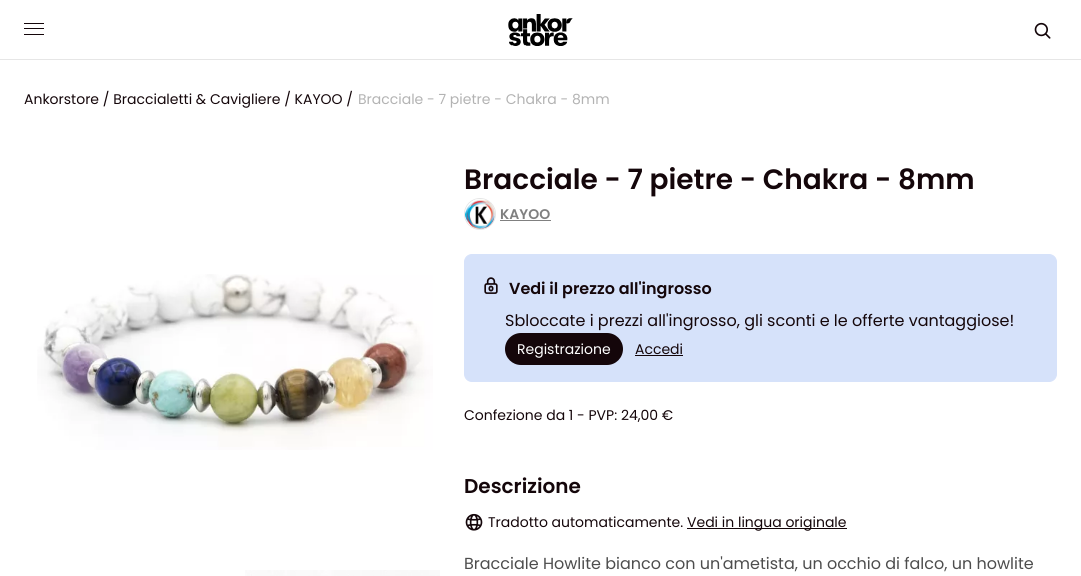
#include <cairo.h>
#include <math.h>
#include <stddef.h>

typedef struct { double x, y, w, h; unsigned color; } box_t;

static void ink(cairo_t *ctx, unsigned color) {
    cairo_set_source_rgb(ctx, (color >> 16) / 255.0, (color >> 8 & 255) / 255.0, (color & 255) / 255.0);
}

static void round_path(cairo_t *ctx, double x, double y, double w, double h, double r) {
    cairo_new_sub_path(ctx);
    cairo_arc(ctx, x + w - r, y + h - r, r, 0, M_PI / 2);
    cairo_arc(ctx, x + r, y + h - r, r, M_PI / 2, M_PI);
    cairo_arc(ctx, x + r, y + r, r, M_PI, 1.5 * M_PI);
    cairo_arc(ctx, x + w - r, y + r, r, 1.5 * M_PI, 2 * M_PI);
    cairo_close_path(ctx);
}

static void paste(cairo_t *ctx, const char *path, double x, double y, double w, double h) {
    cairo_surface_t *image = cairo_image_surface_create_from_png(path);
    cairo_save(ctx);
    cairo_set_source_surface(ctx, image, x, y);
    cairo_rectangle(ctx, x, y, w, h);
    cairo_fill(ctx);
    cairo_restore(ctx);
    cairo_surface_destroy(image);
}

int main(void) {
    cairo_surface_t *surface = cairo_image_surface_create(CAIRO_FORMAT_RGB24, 1081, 576);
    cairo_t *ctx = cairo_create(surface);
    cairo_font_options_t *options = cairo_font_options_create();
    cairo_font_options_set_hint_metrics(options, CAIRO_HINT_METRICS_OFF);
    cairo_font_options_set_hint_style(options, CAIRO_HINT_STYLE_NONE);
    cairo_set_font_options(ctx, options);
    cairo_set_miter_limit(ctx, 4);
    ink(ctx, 0xFFFFFF);
    cairo_paint(ctx);
    {
        static const box_t items[] = {
            {0, 59, 1081, 1, 0xE6E6E6},
            {24, 23, 20, 1, 0x14060A},
            {24, 28, 20, 1, 0x14060A},
            {24, 34, 20, 1, 0x14060A},
        };
        for (size_t i = 0; i < sizeof items / sizeof *items; i++) {
            ink(ctx, items[i].color);
            cairo_rectangle(ctx, items[i].x, items[i].y, items[i].w, items[i].h);
            cairo_fill(ctx);
        }
    }
    paste(ctx, "media/1.png", 508, 14, 65, 32);
    paste(ctx, "media/2.png", 1034, 22, 17, 17);
    cairo_select_font_face(ctx, "Poppins", CAIRO_FONT_SLANT_NORMAL, CAIRO_FONT_WEIGHT_NORMAL);
    cairo_set_font_size(ctx, 14);
    cairo_move_to(ctx, 24, 104);
    cairo_show_text(ctx, "Ankorstore / Braccialetti & Cavigliere / KAYOO /");
    ink(ctx, 0xB3B3B3);
    cairo_move_to(ctx, 358, 104);
    cairo_show_text(ctx, "Bracciale - 7 pietre - Chakra - 8mm");
    paste(ctx, "media/3.png", 37, 274, 396, 176);
    paste(ctx, "media/4.png", 245, 570, 195, 6);
    cairo_select_font_face(ctx, "Poppins SemiBold", CAIRO_FONT_SLANT_NORMAL, CAIRO_FONT_WEIGHT_NORMAL);
    cairo_set_font_size(ctx, 28);
    ink(ctx, 0x14060A);
    cairo_move_to(ctx, 464, 189);
    cairo_show_text(ctx, "Bracciale - 7 pietre - Chakra - 8mm");
    cairo_new_path(ctx);
    cairo_arc(ctx, 480, 214, 15.5, 0, 2 * M_PI);
    ink(ctx, 0xE6E6E6);
    cairo_set_line_width(ctx, 1);
    cairo_stroke(ctx);
    paste(ctx, "media/5.png", 465, 199, 30, 30);
    cairo_set_font_size(ctx, 14);
    ink(ctx, 0x808080);
    cairo_move_to(ctx, 500, 219);
    cairo_show_text(ctx, "KAYOO");
    cairo_rectangle(ctx, 500, 220, 51, 1);
    cairo_fill(ctx);
    ink(ctx, 0xD6E2FA);
    round_path(ctx, 464.5, 254.5, 592, 127, 7.5);
    cairo_fill_preserve(ctx);
    cairo_stroke(ctx);
    paste(ctx, "media/6.png", 484, 277, 14, 17);
    cairo_set_font_size(ctx, 16);
    ink(ctx, 0x14060A);
    cairo_move_to(ctx, 509, 294);
    cairo_show_text(ctx, "Vedi il prezzo all'ingrosso");
    cairo_select_font_face(ctx, "Poppins", CAIRO_FONT_SLANT_NORMAL, CAIRO_FONT_WEIGHT_NORMAL);
    cairo_move_to(ctx, 505, 326);
    cairo_show_text(ctx, "Sbloccate i prezzi all'ingrosso, gli sconti e le offerte vantaggiose!");
    round_path(ctx, 505, 333, 118, 32, 16);
    cairo_fill(ctx);
    cairo_set_font_size(ctx, 14);
    ink(ctx, 0xFFFFFF);
    cairo_move_to(ctx, 517, 354);
    cairo_show_text(ctx, "Registrazione");
    ink(ctx, 0x14060A);
    cairo_move_to(ctx, 635, 354);
    cairo_show_text(ctx, "Accedi");
    cairo_rectangle(ctx, 635, 355, 48, 1);
    cairo_fill(ctx);
    cairo_move_to(ctx, 464, 420);
    cairo_show_text(ctx, "Confezione da 1 - PVP: 24,00 €");
    cairo_select_font_face(ctx, "Poppins SemiBold", CAIRO_FONT_SLANT_NORMAL, CAIRO_FONT_WEIGHT_NORMAL);
    cairo_set_font_size(ctx, 20);
    cairo_move_to(ctx, 464, 493);
    cairo_show_text(ctx, "Descrizione");
    paste(ctx, "media/7.png", 465, 513, 18, 18);
    cairo_select_font_face(ctx, "Poppins", CAIRO_FONT_SLANT_NORMAL, CAIRO_FONT_WEIGHT_NORMAL);
    cairo_set_font_size(ctx, 14);
    cairo_move_to(ctx, 488, 527);
    cairo_show_text(ctx, "Tradotto automaticamente.");
    cairo_rectangle(ctx, 687, 528, 160, 1);
    cairo_fill(ctx);
    cairo_move_to(ctx, 687, 527);
    cairo_show_text(ctx, "Vedi in lingua originale");
    cairo_set_font_size(ctx, 16);
    ink(ctx, 0x4D4D4D);
    cairo_move_to(ctx, 464, 569);
    cairo_show_text(ctx, "Bracciale Howlite bianco con un'ametista, un occhio di falco, un howlite");
    cairo_surface_write_to_png(surface, "image.png");
    cairo_font_options_destroy(options);
    cairo_destroy(ctx);
    cairo_surface_destroy(surface);
    return 0;
}
